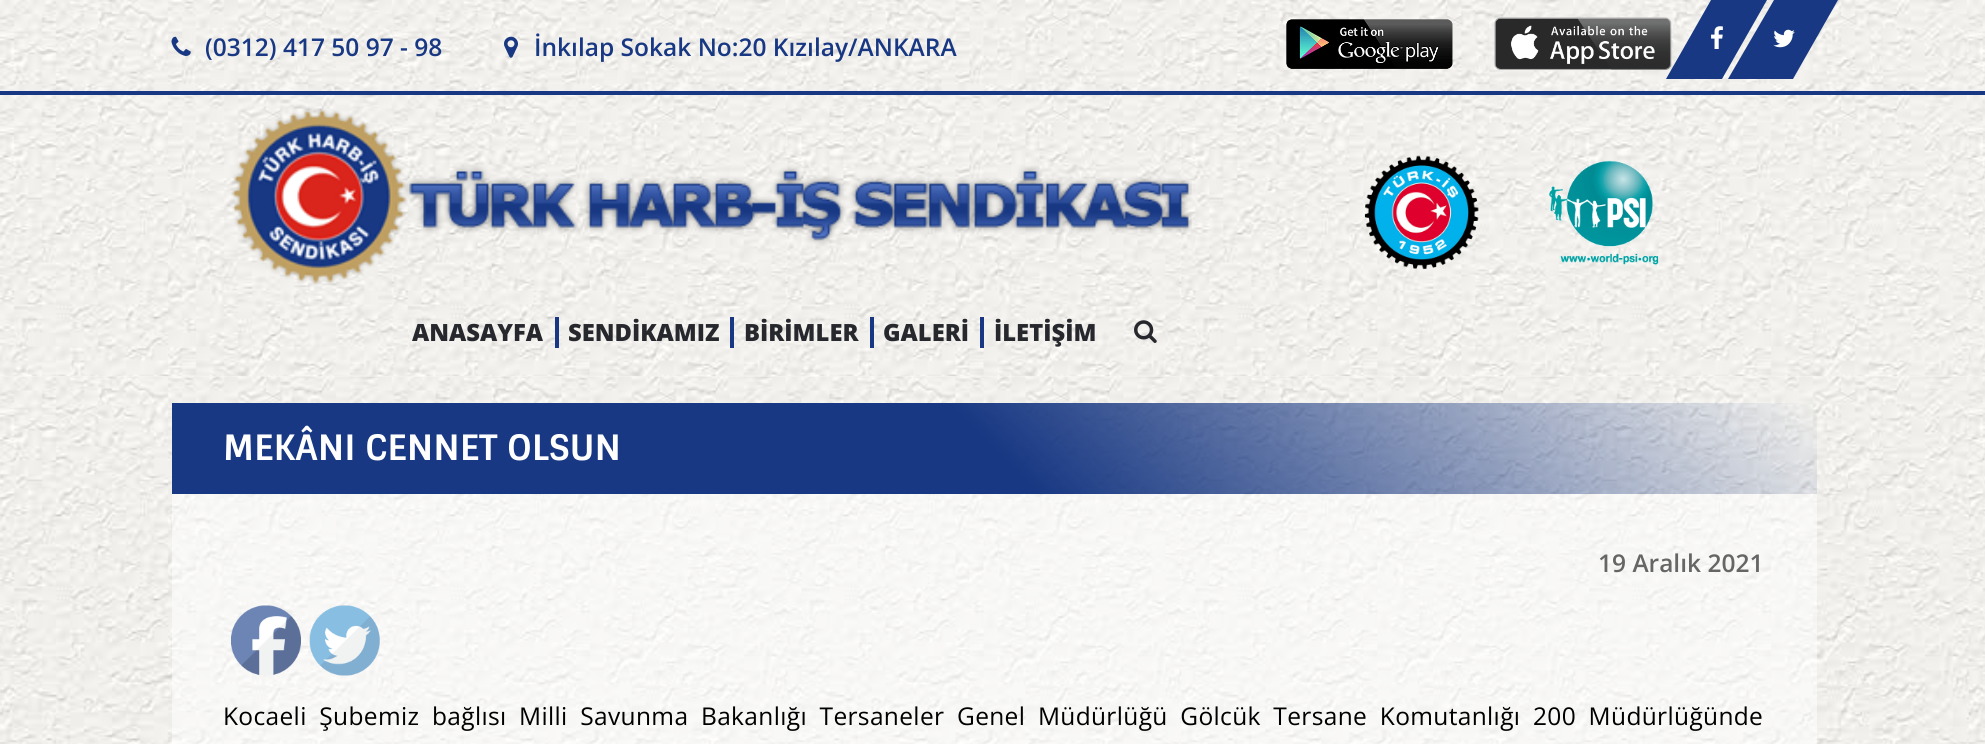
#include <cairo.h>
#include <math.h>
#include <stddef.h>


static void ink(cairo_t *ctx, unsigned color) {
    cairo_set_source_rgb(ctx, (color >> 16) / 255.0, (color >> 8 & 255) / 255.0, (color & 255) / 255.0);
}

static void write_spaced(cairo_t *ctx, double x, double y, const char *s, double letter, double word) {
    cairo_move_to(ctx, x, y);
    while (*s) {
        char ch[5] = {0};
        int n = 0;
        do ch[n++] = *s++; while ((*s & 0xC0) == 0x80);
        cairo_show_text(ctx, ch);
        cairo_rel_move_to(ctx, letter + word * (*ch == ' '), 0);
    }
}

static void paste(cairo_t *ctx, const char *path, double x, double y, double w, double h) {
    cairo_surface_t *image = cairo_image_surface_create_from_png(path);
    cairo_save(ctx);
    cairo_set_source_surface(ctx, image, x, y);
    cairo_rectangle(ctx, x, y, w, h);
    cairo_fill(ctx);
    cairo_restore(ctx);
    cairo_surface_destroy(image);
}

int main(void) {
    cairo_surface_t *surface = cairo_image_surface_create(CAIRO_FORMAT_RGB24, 1985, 744);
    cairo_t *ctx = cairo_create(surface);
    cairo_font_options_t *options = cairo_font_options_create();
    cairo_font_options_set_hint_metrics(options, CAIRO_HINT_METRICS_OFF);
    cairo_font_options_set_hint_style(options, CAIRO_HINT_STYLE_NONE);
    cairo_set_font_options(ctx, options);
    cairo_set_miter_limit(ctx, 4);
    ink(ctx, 0xFFFFFF);
    cairo_paint(ctx);
    paste(ctx, "media/1.png", 0, 0, 1985, 91);
    paste(ctx, "media/2.png", 171, 36, 20, 20);
    cairo_select_font_face(ctx, "Open Sans SemiBold", CAIRO_FONT_SLANT_NORMAL, CAIRO_FONT_WEIGHT_NORMAL);
    cairo_set_font_size(ctx, 24.5);
    ink(ctx, 0x183883);
    cairo_move_to(ctx, 205, 56);
    cairo_show_text(ctx, "(0312) 417 50 97 - 98");
    paste(ctx, "media/3.png", 504, 36, 14, 22);
    cairo_move_to(ctx, 534, 56);
    cairo_show_text(ctx, "İnkılap Sokak No:20 Kızılay/ANKARA");
    paste(ctx, "media/4.png", 1286, 19, 167, 50);
    cairo_new_path(ctx);
    cairo_move_to(ctx, 1711, 0);
    cairo_line_to(ctx, 1767, 0);
    cairo_line_to(ctx, 1722, 79);
    cairo_line_to(ctx, 1666, 79);
    cairo_close_path(ctx);
    cairo_fill(ctx);
    paste(ctx, "media/5.png", 1494, 17, 178, 53);
    paste(ctx, "media/6.png", 1711, 26, 12, 23);
    cairo_new_path(ctx);
    cairo_move_to(ctx, 1774, 0);
    cairo_line_to(ctx, 1838, 0);
    cairo_line_to(ctx, 1793, 79);
    cairo_line_to(ctx, 1728, 79);
    cairo_close_path(ctx);
    cairo_fill(ctx);
    paste(ctx, "media/7.png", 1773, 29, 22, 19);
    paste(ctx, "media/13.png", 0, 376, 1985, 368);
    paste(ctx, "media/8.png", 0, 95, 1985, 282);
    cairo_rectangle(ctx, 0, 91, 1985, 4);
    cairo_fill(ctx);
    paste(ctx, "media/9.png", 231, 108, 961, 177);
    paste(ctx, "media/10.png", 1364, 155, 115, 115);
    paste(ctx, "media/11.png", 1549, 160, 110, 105);
    cairo_rectangle(ctx, 555, 317, 4, 31);
    cairo_fill(ctx);
    cairo_select_font_face(ctx, "Open Sans ExtraBold", CAIRO_FONT_SLANT_NORMAL, CAIRO_FONT_WEIGHT_NORMAL);
    cairo_set_font_size(ctx, 23.75);
    ink(ctx, 0x27282D);
    cairo_move_to(ctx, 412, 341);
    cairo_show_text(ctx, "ANASAYFA");
    ink(ctx, 0x183883);
    cairo_rectangle(ctx, 730, 317, 4, 31);
    cairo_fill(ctx);
    ink(ctx, 0x27282D);
    cairo_move_to(ctx, 568, 341);
    cairo_show_text(ctx, "SENDİKAMIZ");
    ink(ctx, 0x183883);
    cairo_rectangle(ctx, 870, 317, 4, 31);
    cairo_fill(ctx);
    ink(ctx, 0x27282D);
    cairo_move_to(ctx, 744, 341);
    cairo_show_text(ctx, "BİRİMLER");
    ink(ctx, 0x183883);
    cairo_rectangle(ctx, 980, 317, 4, 31);
    cairo_fill(ctx);
    ink(ctx, 0x27282D);
    cairo_move_to(ctx, 883, 341);
    cairo_show_text(ctx, "GALERİ");
    cairo_move_to(ctx, 994, 341);
    cairo_show_text(ctx, "İLETİŞİM");
    paste(ctx, "media/12.png", 1134, 320, 23, 23);
    cairo_select_font_face(ctx, "Sintony", CAIRO_FONT_SLANT_NORMAL, CAIRO_FONT_WEIGHT_BOLD);
    cairo_set_font_size(ctx, 35);
    ink(ctx, 0xFFFFFF);
    cairo_move_to(ctx, 223, 460);
    cairo_show_text(ctx, "MEKÂNI CENNET OLSUN");
    cairo_set_source_rgba(ctx, 1, 1, 1, 0.5);
    cairo_rectangle(ctx, 172, 494, 1645, 250);
    cairo_fill(ctx);
    cairo_select_font_face(ctx, "Open Sans SemiBold", CAIRO_FONT_SLANT_NORMAL, CAIRO_FONT_WEIGHT_NORMAL);
    cairo_set_font_size(ctx, 24.5);
    ink(ctx, 0x666666);
    cairo_move_to(ctx, 1598, 572);
    cairo_show_text(ctx, "19 Aralık 2021");
    paste(ctx, "media/14.png", 231, 605, 70, 70);
    paste(ctx, "media/15.png", 309, 605, 71, 71);
    cairo_select_font_face(ctx, "Open Sans", CAIRO_FONT_SLANT_NORMAL, CAIRO_FONT_WEIGHT_NORMAL);
    ink(ctx, 0x000000);
    write_spaced(ctx, 223, 725, "Kocaeli Şubemiz bağlısı Milli Savunma Bakanlığı Tersaneler Genel Müdürlüğü Gölcük Tersane Komutanlığı 200 Müdürlüğünde", 0.35, 5.9);
    cairo_surface_write_to_png(surface, "image.png");
    cairo_font_options_destroy(options);
    cairo_destroy(ctx);
    cairo_surface_destroy(surface);
    return 0;
}
